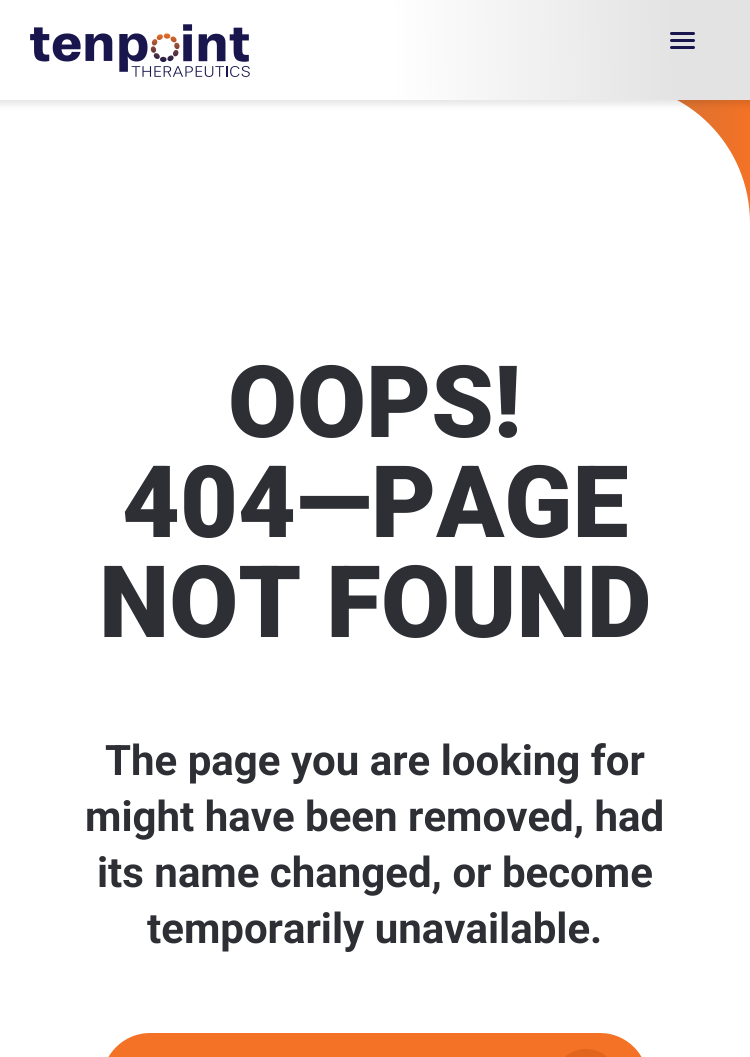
#include <cairo.h>
#include <math.h>
#include <stddef.h>

typedef struct { double x, y; const char *s; } line_t;

static void ink(cairo_t *ctx, unsigned color) {
    cairo_set_source_rgb(ctx, (color >> 16) / 255.0, (color >> 8 & 255) / 255.0, (color & 255) / 255.0);
}

static void round_path(cairo_t *ctx, double x, double y, double w, double h, double r) {
    cairo_new_sub_path(ctx);
    cairo_arc(ctx, x + w - r, y + h - r, r, 0, M_PI / 2);
    cairo_arc(ctx, x + r, y + h - r, r, M_PI / 2, M_PI);
    cairo_arc(ctx, x + r, y + r, r, M_PI, 1.5 * M_PI);
    cairo_arc(ctx, x + w - r, y + r, r, 1.5 * M_PI, 2 * M_PI);
    cairo_close_path(ctx);
}

static void blur_box(cairo_t *ctx, double x, double y, double w, double h, double r, double blur, double alpha) {
    cairo_push_group_with_content(ctx, CAIRO_CONTENT_ALPHA);
    cairo_set_operator(ctx, CAIRO_OPERATOR_SOURCE);
    for (int i = 15; i >= -15 && fmin(w, h) + blur * i / 3 > 0; i -= 2) {
        double e = blur * i / 6;
        cairo_set_source_rgba(ctx, 0, 0, 0, alpha * erfc((i - 1) / 8.5) / 2);
        round_path(ctx, x - e, y - e, w + 2 * e, h + 2 * e, fmax(0, fmin(r + e + blur * .6, fmin(w, h) / 2 + e)));
        cairo_fill(ctx);
    }
    cairo_pattern_t *soft = cairo_pop_group(ctx);
    cairo_mask(ctx, soft);
    cairo_pattern_destroy(soft);
}

static void paste(cairo_t *ctx, const char *path, double x, double y, double w, double h) {
    cairo_surface_t *image = cairo_image_surface_create_from_png(path);
    cairo_save(ctx);
    cairo_set_source_surface(ctx, image, x, y);
    cairo_rectangle(ctx, x, y, w, h);
    cairo_fill(ctx);
    cairo_restore(ctx);
    cairo_surface_destroy(image);
}

int main(void) {
    cairo_surface_t *surface = cairo_image_surface_create(CAIRO_FORMAT_RGB24, 750, 1057);
    cairo_t *ctx = cairo_create(surface);
    cairo_font_options_t *options = cairo_font_options_create();
    cairo_font_options_set_hint_metrics(options, CAIRO_HINT_METRICS_OFF);
    cairo_font_options_set_hint_style(options, CAIRO_HINT_STYLE_NONE);
    cairo_set_font_options(ctx, options);
    cairo_set_miter_limit(ctx, 4);
    cairo_pattern_t *gradient;
    ink(ctx, 0xFFFFFF);
    cairo_paint(ctx);
    gradient = cairo_pattern_create_linear(0, 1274, 750, 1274);
    cairo_pattern_add_color_stop_rgba(gradient, 0, 0, 0.475, 0.686, 1);
    cairo_pattern_add_color_stop_rgba(gradient, 1, 0.953, 0.447, 0.145, 1);
    cairo_set_source(ctx, gradient);
    cairo_pattern_destroy(gradient);
    cairo_rectangle(ctx, 677, 100, 73, 123);
    cairo_fill(ctx);
    ink(ctx, 0xFFFFFF);
    cairo_new_path(ctx);
    cairo_move_to(ctx, 0, 83);
    cairo_line_to(ctx, 610, 83);
    cairo_curve_to(ctx, 687.5, 83, 750, 145.5, 750, 223);
    cairo_line_to(ctx, 750, 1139);
    cairo_line_to(ctx, 0, 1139);
    cairo_close_path(ctx);
    cairo_fill(ctx);
    ink(ctx, 0x000000);
    blur_box(ctx, -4, -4, 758, 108, 0, 3.5, 0.11);
    gradient = cairo_pattern_create_linear(-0.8, 57, 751, 43);
    cairo_pattern_add_color_stop_rgba(gradient, 0.52, 1, 1, 1, 1);
    cairo_pattern_add_color_stop_rgba(gradient, 0.9, 0.89, 0.89, 0.89, 1);
    cairo_set_source(ctx, gradient);
    cairo_pattern_destroy(gradient);
    cairo_rectangle(ctx, 0, 0, 750, 100);
    cairo_fill(ctx);
    paste(ctx, "media/1.png", 30, 24, 220, 53);
    ink(ctx, 0x18164C);
    round_path(ctx, 670, 32, 25, 3, 1.5);
    cairo_fill(ctx);
    round_path(ctx, 670, 39, 25, 3, 1.5);
    cairo_fill(ctx);
    round_path(ctx, 670, 46, 25, 3, 1.5);
    cairo_fill(ctx);
    cairo_select_font_face(ctx, "Roboto Black", CAIRO_FONT_SLANT_NORMAL, CAIRO_FONT_WEIGHT_NORMAL);
    cairo_set_font_size(ctx, 100);
    ink(ctx, 0x2D2F34);
    {
        static const line_t items[] = {
            {228, 437, "OOPS!"},
            {122, 537, "404—PAGE"},
            {99, 637, "NOT FOUND"},
        };
        for (size_t i = 0; i < sizeof items / sizeof *items; i++) {
            cairo_move_to(ctx, items[i].x, items[i].y);
            cairo_show_text(ctx, items[i].s);
        }
    }
    cairo_select_font_face(ctx, "Roboto", CAIRO_FONT_SLANT_NORMAL, CAIRO_FONT_WEIGHT_BOLD);
    cairo_set_font_size(ctx, 42);
    {
        static const line_t items[] = {
            {105, 775, "The page you are looking for"},
            {85, 831, "might have been removed, had"},
            {97, 887, "its name changed, or become"},
            {147, 943, "temporarily unavailable."},
        };
        for (size_t i = 0; i < sizeof items / sizeof *items; i++) {
            cairo_move_to(ctx, items[i].x, items[i].y);
            cairo_show_text(ctx, items[i].s);
        }
    }
    ink(ctx, 0xF37225);
    round_path(ctx, 102, 1033, 546, 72, 48);
    cairo_fill(ctx);
    ink(ctx, 0xE1651C);
    round_path(ctx, 554, 1049, 64, 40, 32);
    cairo_fill(ctx);
    cairo_surface_write_to_png(surface, "image.png");
    cairo_font_options_destroy(options);
    cairo_destroy(ctx);
    cairo_surface_destroy(surface);
    return 0;
}
